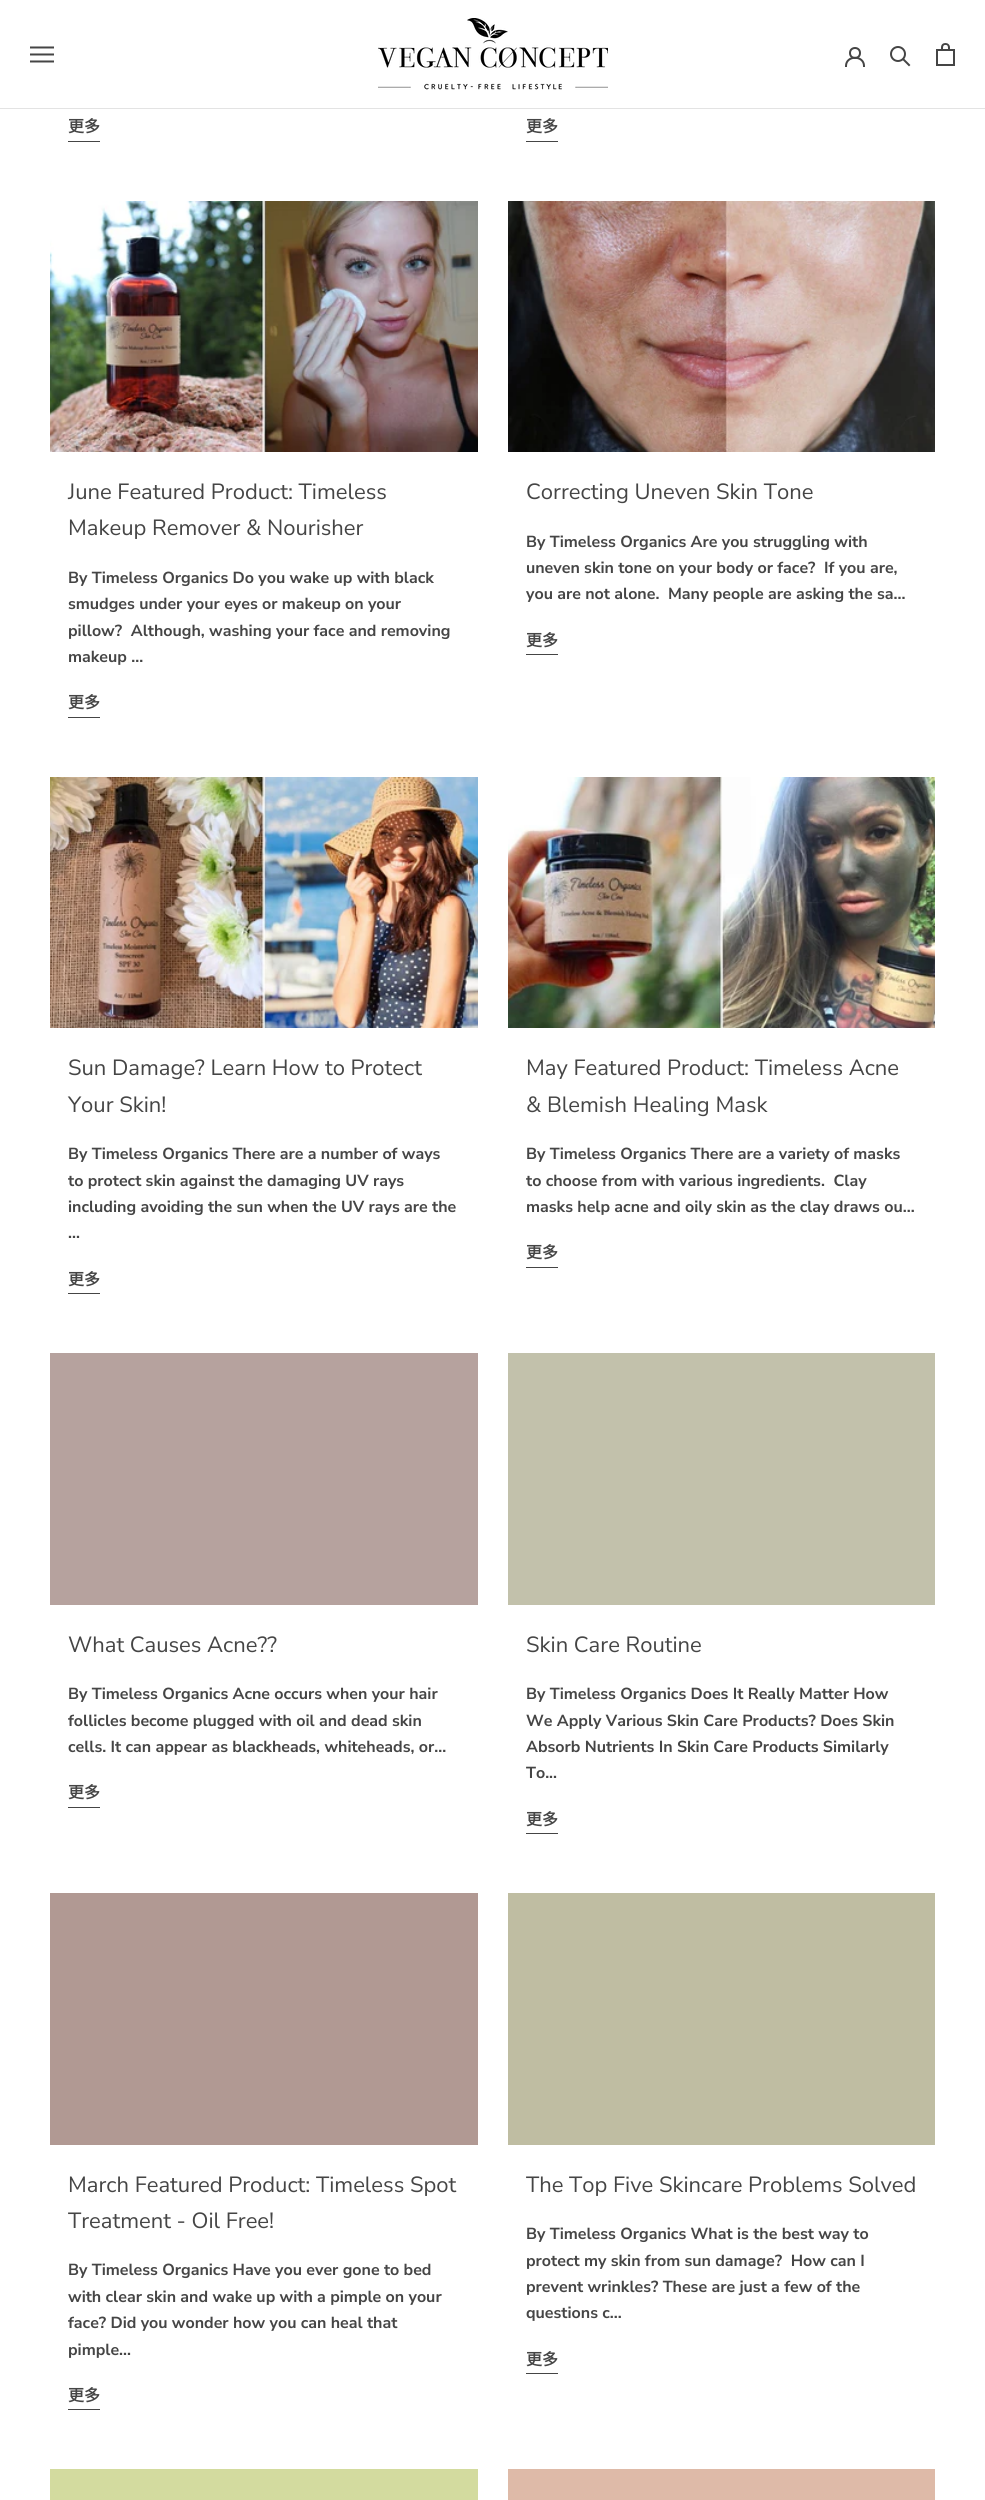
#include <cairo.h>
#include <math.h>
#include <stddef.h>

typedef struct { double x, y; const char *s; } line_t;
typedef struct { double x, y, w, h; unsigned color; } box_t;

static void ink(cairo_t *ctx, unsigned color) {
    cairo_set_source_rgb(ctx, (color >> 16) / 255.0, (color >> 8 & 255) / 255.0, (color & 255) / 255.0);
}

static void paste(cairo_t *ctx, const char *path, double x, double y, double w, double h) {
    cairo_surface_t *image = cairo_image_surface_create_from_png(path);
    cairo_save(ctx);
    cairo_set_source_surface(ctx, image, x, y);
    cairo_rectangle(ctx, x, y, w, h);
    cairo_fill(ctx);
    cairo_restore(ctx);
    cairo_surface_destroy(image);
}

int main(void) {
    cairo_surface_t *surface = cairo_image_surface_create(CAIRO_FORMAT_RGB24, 985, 2500);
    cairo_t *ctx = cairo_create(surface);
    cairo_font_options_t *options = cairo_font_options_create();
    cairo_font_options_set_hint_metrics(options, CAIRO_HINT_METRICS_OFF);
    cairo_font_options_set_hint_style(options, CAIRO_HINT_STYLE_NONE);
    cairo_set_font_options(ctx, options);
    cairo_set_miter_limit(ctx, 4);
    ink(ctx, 0xFFFFFF);
    cairo_paint(ctx);
    ink(ctx, 0xE3E3E3);
    cairo_rectangle(ctx, 0, 108, 985, 1);
    cairo_fill(ctx);
    paste(ctx, "media/1.png", 30, 46, 24, 17);
    paste(ctx, "media/2.png", 378, 18, 230, 72);
    cairo_new_path(ctx);
    cairo_move_to(ctx, 846, 66);
    cairo_curve_to(ctx, 846, 55, 864, 55, 864, 66);
    ink(ctx, 0x454545);
    cairo_set_line_cap(ctx, CAIRO_LINE_CAP_SQUARE);
    cairo_stroke(ctx);
    cairo_arc(ctx, 855, 53, 5, 0, 2 * M_PI);
    cairo_set_line_cap(ctx, CAIRO_LINE_CAP_BUTT);
    cairo_stroke(ctx);
    cairo_new_path(ctx);
    cairo_move_to(ctx, 909, 65);
    cairo_line_to(ctx, 903.5, 59.5);
    cairo_set_line_cap(ctx, CAIRO_LINE_CAP_SQUARE);
    cairo_stroke(ctx);
    cairo_arc(ctx, 898, 54, 7, 0, 2 * M_PI);
    cairo_set_line_cap(ctx, CAIRO_LINE_CAP_BUTT);
    cairo_stroke(ctx);
    paste(ctx, "media/3.png", 936, 43, 19, 23);
    cairo_select_font_face(ctx, "Noto Sans CJK TC", CAIRO_FONT_SLANT_NORMAL, CAIRO_FONT_WEIGHT_BOLD);
    cairo_set_font_size(ctx, 16);
    cairo_move_to(ctx, 68, 132);
    cairo_show_text(ctx, "更多");
    cairo_rectangle(ctx, 68, 141, 32, 1);
    cairo_fill(ctx);
    cairo_move_to(ctx, 526, 132);
    cairo_show_text(ctx, "更多");
    cairo_rectangle(ctx, 526, 141, 32, 1);
    cairo_fill(ctx);
    paste(ctx, "media/4.png", 50, 201, 428, 251);
    cairo_select_font_face(ctx, "Nunito Sans", CAIRO_FONT_SLANT_NORMAL, CAIRO_FONT_WEIGHT_NORMAL);
    cairo_set_font_size(ctx, 22);
    cairo_move_to(ctx, 68, 499);
    cairo_show_text(ctx, "June Featured Product: Timeless");
    cairo_move_to(ctx, 68, 535);
    cairo_show_text(ctx, "Makeup Remover & Nourisher");
    cairo_select_font_face(ctx, "Nunito Sans", CAIRO_FONT_SLANT_NORMAL, CAIRO_FONT_WEIGHT_BOLD);
    cairo_set_font_size(ctx, 16);
    {
        static const line_t items[] = {
            {68, 583, "By Timeless Organics Do you wake up with black"},
            {68, 609, "smudges under your eyes or makeup on your"},
            {68, 636, "pillow?  Although, washing your face and removing"},
            {68, 662, "makeup ..."},
        };
        for (size_t i = 0; i < sizeof items / sizeof *items; i++) {
            cairo_move_to(ctx, items[i].x, items[i].y);
            cairo_show_text(ctx, items[i].s);
        }
    }
    cairo_select_font_face(ctx, "Noto Sans CJK TC", CAIRO_FONT_SLANT_NORMAL, CAIRO_FONT_WEIGHT_BOLD);
    cairo_move_to(ctx, 68, 708);
    cairo_show_text(ctx, "更多");
    cairo_rectangle(ctx, 68, 717, 32, 1);
    cairo_fill(ctx);
    paste(ctx, "media/5.png", 508, 201, 427, 251);
    cairo_select_font_face(ctx, "Nunito Sans", CAIRO_FONT_SLANT_NORMAL, CAIRO_FONT_WEIGHT_NORMAL);
    cairo_set_font_size(ctx, 22);
    cairo_move_to(ctx, 526, 499);
    cairo_show_text(ctx, "Correcting Uneven Skin Tone");
    cairo_select_font_face(ctx, "Nunito Sans", CAIRO_FONT_SLANT_NORMAL, CAIRO_FONT_WEIGHT_BOLD);
    cairo_set_font_size(ctx, 16);
    {
        static const line_t items[] = {
            {526, 547, "By Timeless Organics Are you struggling with"},
            {526, 573, "uneven skin tone on your body or face?  If you are,"},
            {526, 599, "you are not alone.  Many people are asking the sa..."},
        };
        for (size_t i = 0; i < sizeof items / sizeof *items; i++) {
            cairo_move_to(ctx, items[i].x, items[i].y);
            cairo_show_text(ctx, items[i].s);
        }
    }
    cairo_select_font_face(ctx, "Noto Sans CJK TC", CAIRO_FONT_SLANT_NORMAL, CAIRO_FONT_WEIGHT_BOLD);
    cairo_move_to(ctx, 526, 646);
    cairo_show_text(ctx, "更多");
    cairo_rectangle(ctx, 526, 654, 32, 1);
    cairo_fill(ctx);
    paste(ctx, "media/6.png", 50, 777, 428, 251);
    cairo_select_font_face(ctx, "Nunito Sans", CAIRO_FONT_SLANT_NORMAL, CAIRO_FONT_WEIGHT_NORMAL);
    cairo_set_font_size(ctx, 22);
    cairo_move_to(ctx, 68, 1075);
    cairo_show_text(ctx, "Sun Damage? Learn How to Protect");
    cairo_move_to(ctx, 68, 1112);
    cairo_show_text(ctx, "Your Skin!");
    cairo_select_font_face(ctx, "Nunito Sans", CAIRO_FONT_SLANT_NORMAL, CAIRO_FONT_WEIGHT_BOLD);
    cairo_set_font_size(ctx, 16);
    {
        static const line_t items[] = {
            {68, 1159, "By Timeless Organics There are a number of ways"},
            {68, 1186, "to protect skin against the damaging UV rays"},
            {68, 1212, "including avoiding the sun when the UV rays are the"},
            {68, 1238, "..."},
        };
        for (size_t i = 0; i < sizeof items / sizeof *items; i++) {
            cairo_move_to(ctx, items[i].x, items[i].y);
            cairo_show_text(ctx, items[i].s);
        }
    }
    cairo_select_font_face(ctx, "Noto Sans CJK TC", CAIRO_FONT_SLANT_NORMAL, CAIRO_FONT_WEIGHT_BOLD);
    cairo_move_to(ctx, 68, 1285);
    cairo_show_text(ctx, "更多");
    cairo_rectangle(ctx, 68, 1293, 32, 1);
    cairo_fill(ctx);
    paste(ctx, "media/7.png", 508, 777, 427, 251);
    cairo_select_font_face(ctx, "Nunito Sans", CAIRO_FONT_SLANT_NORMAL, CAIRO_FONT_WEIGHT_NORMAL);
    cairo_set_font_size(ctx, 22);
    cairo_move_to(ctx, 526, 1075);
    cairo_show_text(ctx, "May Featured Product: Timeless Acne");
    cairo_move_to(ctx, 526, 1112);
    cairo_show_text(ctx, "& Blemish Healing Mask");
    cairo_select_font_face(ctx, "Nunito Sans", CAIRO_FONT_SLANT_NORMAL, CAIRO_FONT_WEIGHT_BOLD);
    cairo_set_font_size(ctx, 16);
    {
        static const line_t items[] = {
            {526, 1159, "By Timeless Organics There are a variety of masks"},
            {526, 1186, "to choose from with various ingredients.  Clay"},
            {526, 1212, "masks help acne and oily skin as the clay draws ou..."},
        };
        for (size_t i = 0; i < sizeof items / sizeof *items; i++) {
            cairo_move_to(ctx, items[i].x, items[i].y);
            cairo_show_text(ctx, items[i].s);
        }
    }
    cairo_select_font_face(ctx, "Noto Sans CJK TC", CAIRO_FONT_SLANT_NORMAL, CAIRO_FONT_WEIGHT_BOLD);
    cairo_move_to(ctx, 526, 1258);
    cairo_show_text(ctx, "更多");
    cairo_rectangle(ctx, 526, 1267, 32, 1);
    cairo_fill(ctx);
    ink(ctx, 0xB6A29E);
    cairo_rectangle(ctx, 50, 1353, 428, 252);
    cairo_fill(ctx);
    cairo_select_font_face(ctx, "Nunito Sans", CAIRO_FONT_SLANT_NORMAL, CAIRO_FONT_WEIGHT_NORMAL);
    cairo_set_font_size(ctx, 22);
    ink(ctx, 0x454545);
    cairo_move_to(ctx, 68, 1652);
    cairo_show_text(ctx, "What Causes Acne?\077");
    cairo_select_font_face(ctx, "Nunito Sans", CAIRO_FONT_SLANT_NORMAL, CAIRO_FONT_WEIGHT_BOLD);
    cairo_set_font_size(ctx, 16);
    {
        static const line_t items[] = {
            {68, 1699, "By Timeless Organics Acne occurs when your hair"},
            {68, 1726, "follicles become plugged with oil and dead skin"},
            {68, 1752, "cells. It can appear as blackheads, whiteheads, or..."},
        };
        for (size_t i = 0; i < sizeof items / sizeof *items; i++) {
            cairo_move_to(ctx, items[i].x, items[i].y);
            cairo_show_text(ctx, items[i].s);
        }
    }
    cairo_select_font_face(ctx, "Noto Sans CJK TC", CAIRO_FONT_SLANT_NORMAL, CAIRO_FONT_WEIGHT_BOLD);
    cairo_move_to(ctx, 68, 1798);
    cairo_show_text(ctx, "更多");
    cairo_rectangle(ctx, 68, 1807, 32, 1);
    cairo_fill(ctx);
    ink(ctx, 0xC2C1AB);
    cairo_rectangle(ctx, 508, 1353, 427, 252);
    cairo_fill(ctx);
    cairo_select_font_face(ctx, "Nunito Sans", CAIRO_FONT_SLANT_NORMAL, CAIRO_FONT_WEIGHT_NORMAL);
    cairo_set_font_size(ctx, 22);
    ink(ctx, 0x454545);
    cairo_move_to(ctx, 526, 1652);
    cairo_show_text(ctx, "Skin Care Routine");
    cairo_select_font_face(ctx, "Nunito Sans", CAIRO_FONT_SLANT_NORMAL, CAIRO_FONT_WEIGHT_BOLD);
    cairo_set_font_size(ctx, 16);
    {
        static const line_t items[] = {
            {526, 1699, "By Timeless Organics Does It Really Matter How"},
            {526, 1726, "We Apply Various Skin Care Products? Does Skin"},
            {526, 1752, "Absorb Nutrients In Skin Care Products Similarly"},
            {526, 1778, "To..."},
        };
        for (size_t i = 0; i < sizeof items / sizeof *items; i++) {
            cairo_move_to(ctx, items[i].x, items[i].y);
            cairo_show_text(ctx, items[i].s);
        }
    }
    cairo_select_font_face(ctx, "Noto Sans CJK TC", CAIRO_FONT_SLANT_NORMAL, CAIRO_FONT_WEIGHT_BOLD);
    cairo_move_to(ctx, 526, 1825);
    cairo_show_text(ctx, "更多");
    cairo_rectangle(ctx, 526, 1833, 32, 1);
    cairo_fill(ctx);
    ink(ctx, 0xB19993);
    cairo_rectangle(ctx, 50, 1893, 428, 252);
    cairo_fill(ctx);
    cairo_select_font_face(ctx, "Nunito Sans", CAIRO_FONT_SLANT_NORMAL, CAIRO_FONT_WEIGHT_NORMAL);
    cairo_set_font_size(ctx, 22);
    ink(ctx, 0x454545);
    cairo_move_to(ctx, 68, 2192);
    cairo_show_text(ctx, "March Featured Product: Timeless Spot");
    cairo_move_to(ctx, 68, 2228);
    cairo_show_text(ctx, "Treatment - Oil Free!");
    cairo_select_font_face(ctx, "Nunito Sans", CAIRO_FONT_SLANT_NORMAL, CAIRO_FONT_WEIGHT_BOLD);
    cairo_set_font_size(ctx, 16);
    {
        static const line_t items[] = {
            {68, 2275, "By Timeless Organics Have you ever gone to bed"},
            {68, 2302, "with clear skin and wake up with a pimple on your"},
            {68, 2328, "face? Did you wonder how you can heal that"},
            {68, 2355, "pimple..."},
        };
        for (size_t i = 0; i < sizeof items / sizeof *items; i++) {
            cairo_move_to(ctx, items[i].x, items[i].y);
            cairo_show_text(ctx, items[i].s);
        }
    }
    cairo_select_font_face(ctx, "Noto Sans CJK TC", CAIRO_FONT_SLANT_NORMAL, CAIRO_FONT_WEIGHT_BOLD);
    cairo_move_to(ctx, 68, 2401);
    cairo_show_text(ctx, "更多");
    cairo_rectangle(ctx, 68, 2409, 32, 1);
    cairo_fill(ctx);
    ink(ctx, 0xBFBDA2);
    cairo_rectangle(ctx, 508, 1893, 427, 252);
    cairo_fill(ctx);
    cairo_select_font_face(ctx, "Nunito Sans", CAIRO_FONT_SLANT_NORMAL, CAIRO_FONT_WEIGHT_NORMAL);
    cairo_set_font_size(ctx, 22);
    ink(ctx, 0x454545);
    cairo_move_to(ctx, 526, 2192);
    cairo_show_text(ctx, "The Top Five Skincare Problems Solved");
    cairo_select_font_face(ctx, "Nunito Sans", CAIRO_FONT_SLANT_NORMAL, CAIRO_FONT_WEIGHT_BOLD);
    cairo_set_font_size(ctx, 16);
    {
        static const line_t items[] = {
            {526, 2239, "By Timeless Organics What is the best way to"},
            {526, 2266, "protect my skin from sun damage?  How can I"},
            {526, 2292, "prevent wrinkles? These are just a few of the"},
            {526, 2318, "questions c..."},
        };
        for (size_t i = 0; i < sizeof items / sizeof *items; i++) {
            cairo_move_to(ctx, items[i].x, items[i].y);
            cairo_show_text(ctx, items[i].s);
        }
    }
    cairo_select_font_face(ctx, "Noto Sans CJK TC", CAIRO_FONT_SLANT_NORMAL, CAIRO_FONT_WEIGHT_BOLD);
    cairo_move_to(ctx, 526, 2365);
    cairo_show_text(ctx, "更多");
    {
        static const box_t items[] = {
            {526, 2373, 32, 1, 0x454545},
            {50, 2469, 428, 31, 0xD3DB9F},
            {508, 2469, 427, 31, 0xDEBAA8},
        };
        for (size_t i = 0; i < sizeof items / sizeof *items; i++) {
            ink(ctx, items[i].color);
            cairo_rectangle(ctx, items[i].x, items[i].y, items[i].w, items[i].h);
            cairo_fill(ctx);
        }
    }
    cairo_surface_write_to_png(surface, "image.png");
    cairo_font_options_destroy(options);
    cairo_destroy(ctx);
    cairo_surface_destroy(surface);
    return 0;
}
